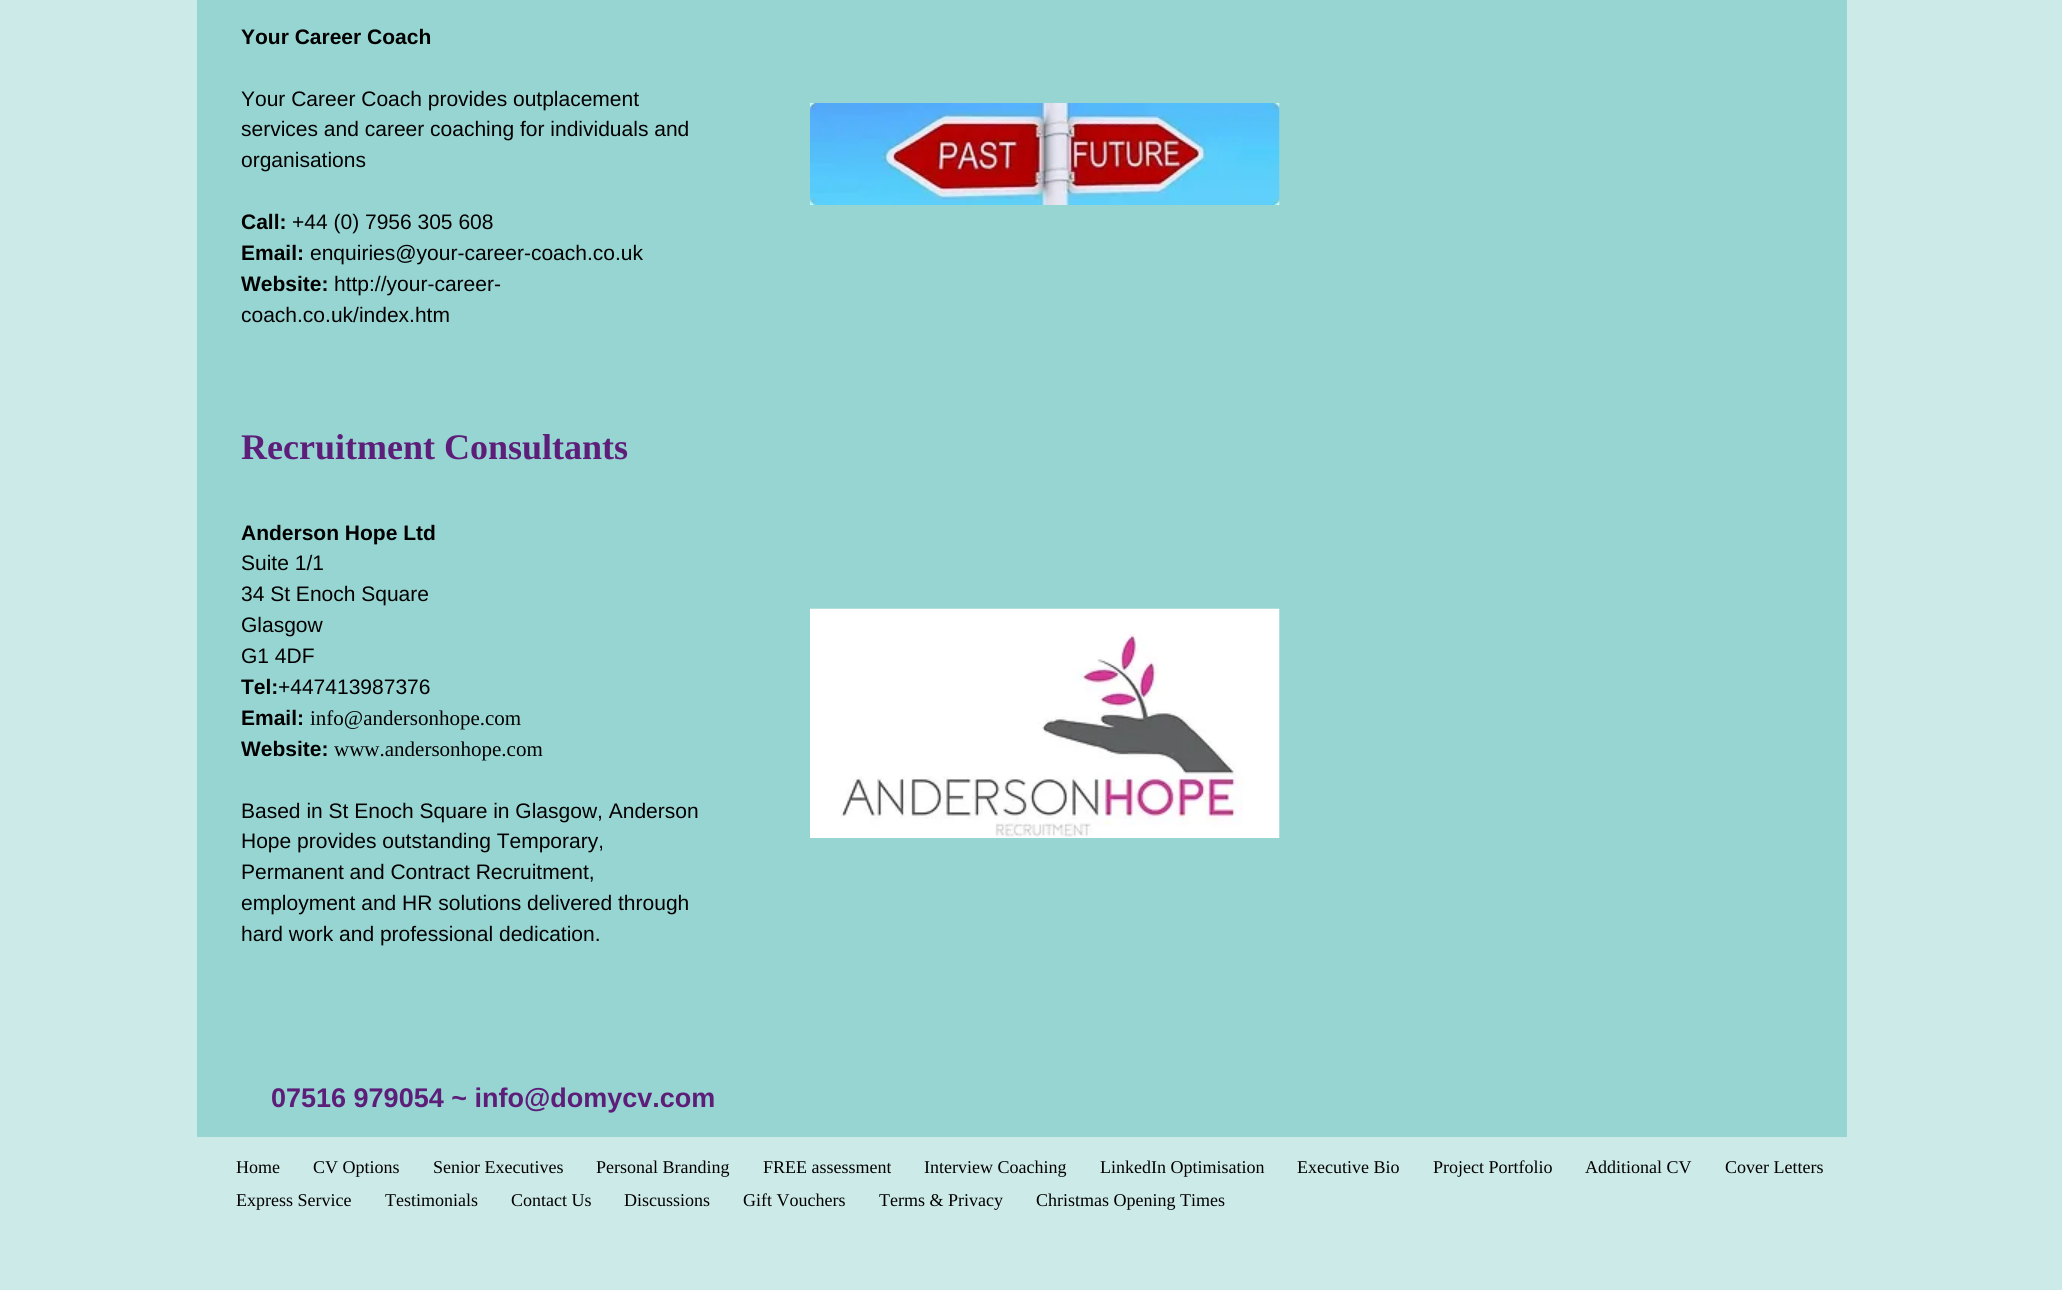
#include <cairo.h>
#include <math.h>
#include <stddef.h>

typedef struct { double x, y; const char *s; } line_t;

static void ink(cairo_t *ctx, unsigned color) {
    cairo_set_source_rgb(ctx, (color >> 16) / 255.0, (color >> 8 & 255) / 255.0, (color & 255) / 255.0);
}

static void paste(cairo_t *ctx, const char *path, double x, double y, double w, double h) {
    cairo_surface_t *image = cairo_image_surface_create_from_png(path);
    cairo_save(ctx);
    cairo_set_source_surface(ctx, image, x, y);
    cairo_rectangle(ctx, x, y, w, h);
    cairo_fill(ctx);
    cairo_restore(ctx);
    cairo_surface_destroy(image);
}

int main(void) {
    cairo_surface_t *surface = cairo_image_surface_create(CAIRO_FORMAT_RGB24, 2062, 1290);
    cairo_t *ctx = cairo_create(surface);
    cairo_font_options_t *options = cairo_font_options_create();
    cairo_font_options_set_hint_metrics(options, CAIRO_HINT_METRICS_OFF);
    cairo_font_options_set_hint_style(options, CAIRO_HINT_STYLE_NONE);
    cairo_set_font_options(ctx, options);
    cairo_set_miter_limit(ctx, 4);
    ink(ctx, 0xCCEAE8);
    cairo_paint(ctx);
    ink(ctx, 0x97D5D2);
    cairo_rectangle(ctx, 197, 0, 1650, 1137);
    cairo_fill(ctx);
    cairo_select_font_face(ctx, "Liberation Sans", CAIRO_FONT_SLANT_NORMAL, CAIRO_FONT_WEIGHT_BOLD);
    cairo_set_font_size(ctx, 21);
    ink(ctx, 0x000000);
    cairo_move_to(ctx, 241, 44);
    cairo_show_text(ctx, "Your Career Coach");
    cairo_select_font_face(ctx, "Liberation Sans", CAIRO_FONT_SLANT_NORMAL, CAIRO_FONT_WEIGHT_NORMAL);
    {
        static const line_t items[] = {
            {241, 106, "Your Career Coach provides outplacement"},
            {241, 136, "services and career coaching for individuals and"},
            {241, 167, "organisations"},
        };
        for (size_t i = 0; i < sizeof items / sizeof *items; i++) {
            cairo_move_to(ctx, items[i].x, items[i].y);
            cairo_show_text(ctx, items[i].s);
        }
    }
    cairo_select_font_face(ctx, "Liberation Sans", CAIRO_FONT_SLANT_NORMAL, CAIRO_FONT_WEIGHT_BOLD);
    cairo_move_to(ctx, 241, 229);
    cairo_show_text(ctx, "Call:");
    cairo_select_font_face(ctx, "Liberation Sans", CAIRO_FONT_SLANT_NORMAL, CAIRO_FONT_WEIGHT_NORMAL);
    cairo_move_to(ctx, 292, 229);
    cairo_show_text(ctx, "+44 (0) 7956 305 608");
    cairo_select_font_face(ctx, "Liberation Sans", CAIRO_FONT_SLANT_NORMAL, CAIRO_FONT_WEIGHT_BOLD);
    cairo_move_to(ctx, 241, 260);
    cairo_show_text(ctx, "Email:");
    cairo_select_font_face(ctx, "Liberation Sans", CAIRO_FONT_SLANT_NORMAL, CAIRO_FONT_WEIGHT_NORMAL);
    cairo_move_to(ctx, 310, 260);
    cairo_show_text(ctx, "enquiries@your-career-coach.co.uk");
    cairo_select_font_face(ctx, "Liberation Sans", CAIRO_FONT_SLANT_NORMAL, CAIRO_FONT_WEIGHT_BOLD);
    cairo_move_to(ctx, 241, 291);
    cairo_show_text(ctx, "Website:");
    cairo_select_font_face(ctx, "Liberation Sans", CAIRO_FONT_SLANT_NORMAL, CAIRO_FONT_WEIGHT_NORMAL);
    cairo_move_to(ctx, 334, 291);
    cairo_show_text(ctx, "http://your-career-");
    cairo_move_to(ctx, 241, 322);
    cairo_show_text(ctx, "coach.co.uk/index.htm");
    paste(ctx, "media/1.png", 810, 103, 470, 102);
    cairo_select_font_face(ctx, "Liberation Serif", CAIRO_FONT_SLANT_NORMAL, CAIRO_FONT_WEIGHT_BOLD);
    cairo_set_font_size(ctx, 36);
    ink(ctx, 0x5D1E79);
    cairo_move_to(ctx, 241, 459);
    cairo_show_text(ctx, "Recruitment Consultants");
    cairo_select_font_face(ctx, "Liberation Sans", CAIRO_FONT_SLANT_NORMAL, CAIRO_FONT_WEIGHT_BOLD);
    cairo_set_font_size(ctx, 21);
    ink(ctx, 0x000000);
    cairo_move_to(ctx, 241, 540);
    cairo_show_text(ctx, "Anderson Hope Ltd");
    cairo_select_font_face(ctx, "Liberation Sans", CAIRO_FONT_SLANT_NORMAL, CAIRO_FONT_WEIGHT_NORMAL);
    {
        static const line_t items[] = {
            {241, 570, "Suite 1/1"},
            {241, 601, "34 St Enoch Square"},
            {241, 632, "Glasgow"},
            {241, 663, "G1 4DF"},
        };
        for (size_t i = 0; i < sizeof items / sizeof *items; i++) {
            cairo_move_to(ctx, items[i].x, items[i].y);
            cairo_show_text(ctx, items[i].s);
        }
    }
    cairo_select_font_face(ctx, "Liberation Sans", CAIRO_FONT_SLANT_NORMAL, CAIRO_FONT_WEIGHT_BOLD);
    cairo_move_to(ctx, 241, 694);
    cairo_show_text(ctx, "Tel:");
    cairo_select_font_face(ctx, "Liberation Sans", CAIRO_FONT_SLANT_NORMAL, CAIRO_FONT_WEIGHT_NORMAL);
    cairo_move_to(ctx, 278, 694);
    cairo_show_text(ctx, "+447413987376");
    cairo_select_font_face(ctx, "Liberation Sans", CAIRO_FONT_SLANT_NORMAL, CAIRO_FONT_WEIGHT_BOLD);
    cairo_move_to(ctx, 241, 725);
    cairo_show_text(ctx, "Email:");
    cairo_select_font_face(ctx, "Liberation Serif", CAIRO_FONT_SLANT_NORMAL, CAIRO_FONT_WEIGHT_NORMAL);
    cairo_move_to(ctx, 310, 725);
    cairo_show_text(ctx, "info@andersonhope.com");
    cairo_select_font_face(ctx, "Liberation Sans", CAIRO_FONT_SLANT_NORMAL, CAIRO_FONT_WEIGHT_BOLD);
    cairo_move_to(ctx, 241, 756);
    cairo_show_text(ctx, "Website:");
    cairo_select_font_face(ctx, "Liberation Serif", CAIRO_FONT_SLANT_NORMAL, CAIRO_FONT_WEIGHT_NORMAL);
    cairo_move_to(ctx, 334, 756);
    cairo_show_text(ctx, "www.andersonhope.com");
    cairo_select_font_face(ctx, "Liberation Sans", CAIRO_FONT_SLANT_NORMAL, CAIRO_FONT_WEIGHT_NORMAL);
    {
        static const line_t items[] = {
            {241, 818, "Based in St Enoch Square in Glasgow, Anderson"},
            {241, 848, "Hope provides outstanding Temporary,"},
            {241, 879, "Permanent and Contract Recruitment,"},
            {241, 910, "employment and HR solutions delivered through"},
            {241, 941, "hard work and professional dedication."},
        };
        for (size_t i = 0; i < sizeof items / sizeof *items; i++) {
            cairo_move_to(ctx, items[i].x, items[i].y);
            cairo_show_text(ctx, items[i].s);
        }
    }
    paste(ctx, "media/2.png", 810, 608, 470, 230);
    cairo_select_font_face(ctx, "Liberation Sans", CAIRO_FONT_SLANT_NORMAL, CAIRO_FONT_WEIGHT_BOLD);
    cairo_set_font_size(ctx, 27);
    ink(ctx, 0x5D1E79);
    cairo_move_to(ctx, 271, 1107);
    cairo_show_text(ctx, "07516 979054 ~ info@domycv.com");
    cairo_select_font_face(ctx, "Liberation Serif", CAIRO_FONT_SLANT_NORMAL, CAIRO_FONT_WEIGHT_NORMAL);
    cairo_set_font_size(ctx, 18);
    ink(ctx, 0x000000);
    {
        static const line_t items[] = {
            {236, 1173, "Home"},
            {313, 1173, "CV Options"},
            {433, 1173, "Senior Executives"},
            {596, 1173, "Personal Branding"},
            {763, 1173, "FREE assessment"},
            {924, 1173, "Interview Coaching"},
            {1100, 1173, "LinkedIn Optimisation"},
            {1297, 1173, "Executive Bio"},
            {1433, 1173, "Project Portfolio"},
            {1585, 1173, "Additional CV"},
            {1725, 1173, "Cover Letters"},
            {236, 1206, "Express Service"},
            {385, 1206, "Testimonials"},
            {511, 1206, "Contact Us"},
            {624, 1206, "Discussions"},
            {743, 1206, "Gift Vouchers"},
            {879, 1206, "Terms & Privacy"},
            {1036, 1206, "Christmas Opening Times"},
        };
        for (size_t i = 0; i < sizeof items / sizeof *items; i++) {
            cairo_move_to(ctx, items[i].x, items[i].y);
            cairo_show_text(ctx, items[i].s);
        }
    }
    cairo_surface_write_to_png(surface, "image.png");
    cairo_font_options_destroy(options);
    cairo_destroy(ctx);
    cairo_surface_destroy(surface);
    return 0;
}
